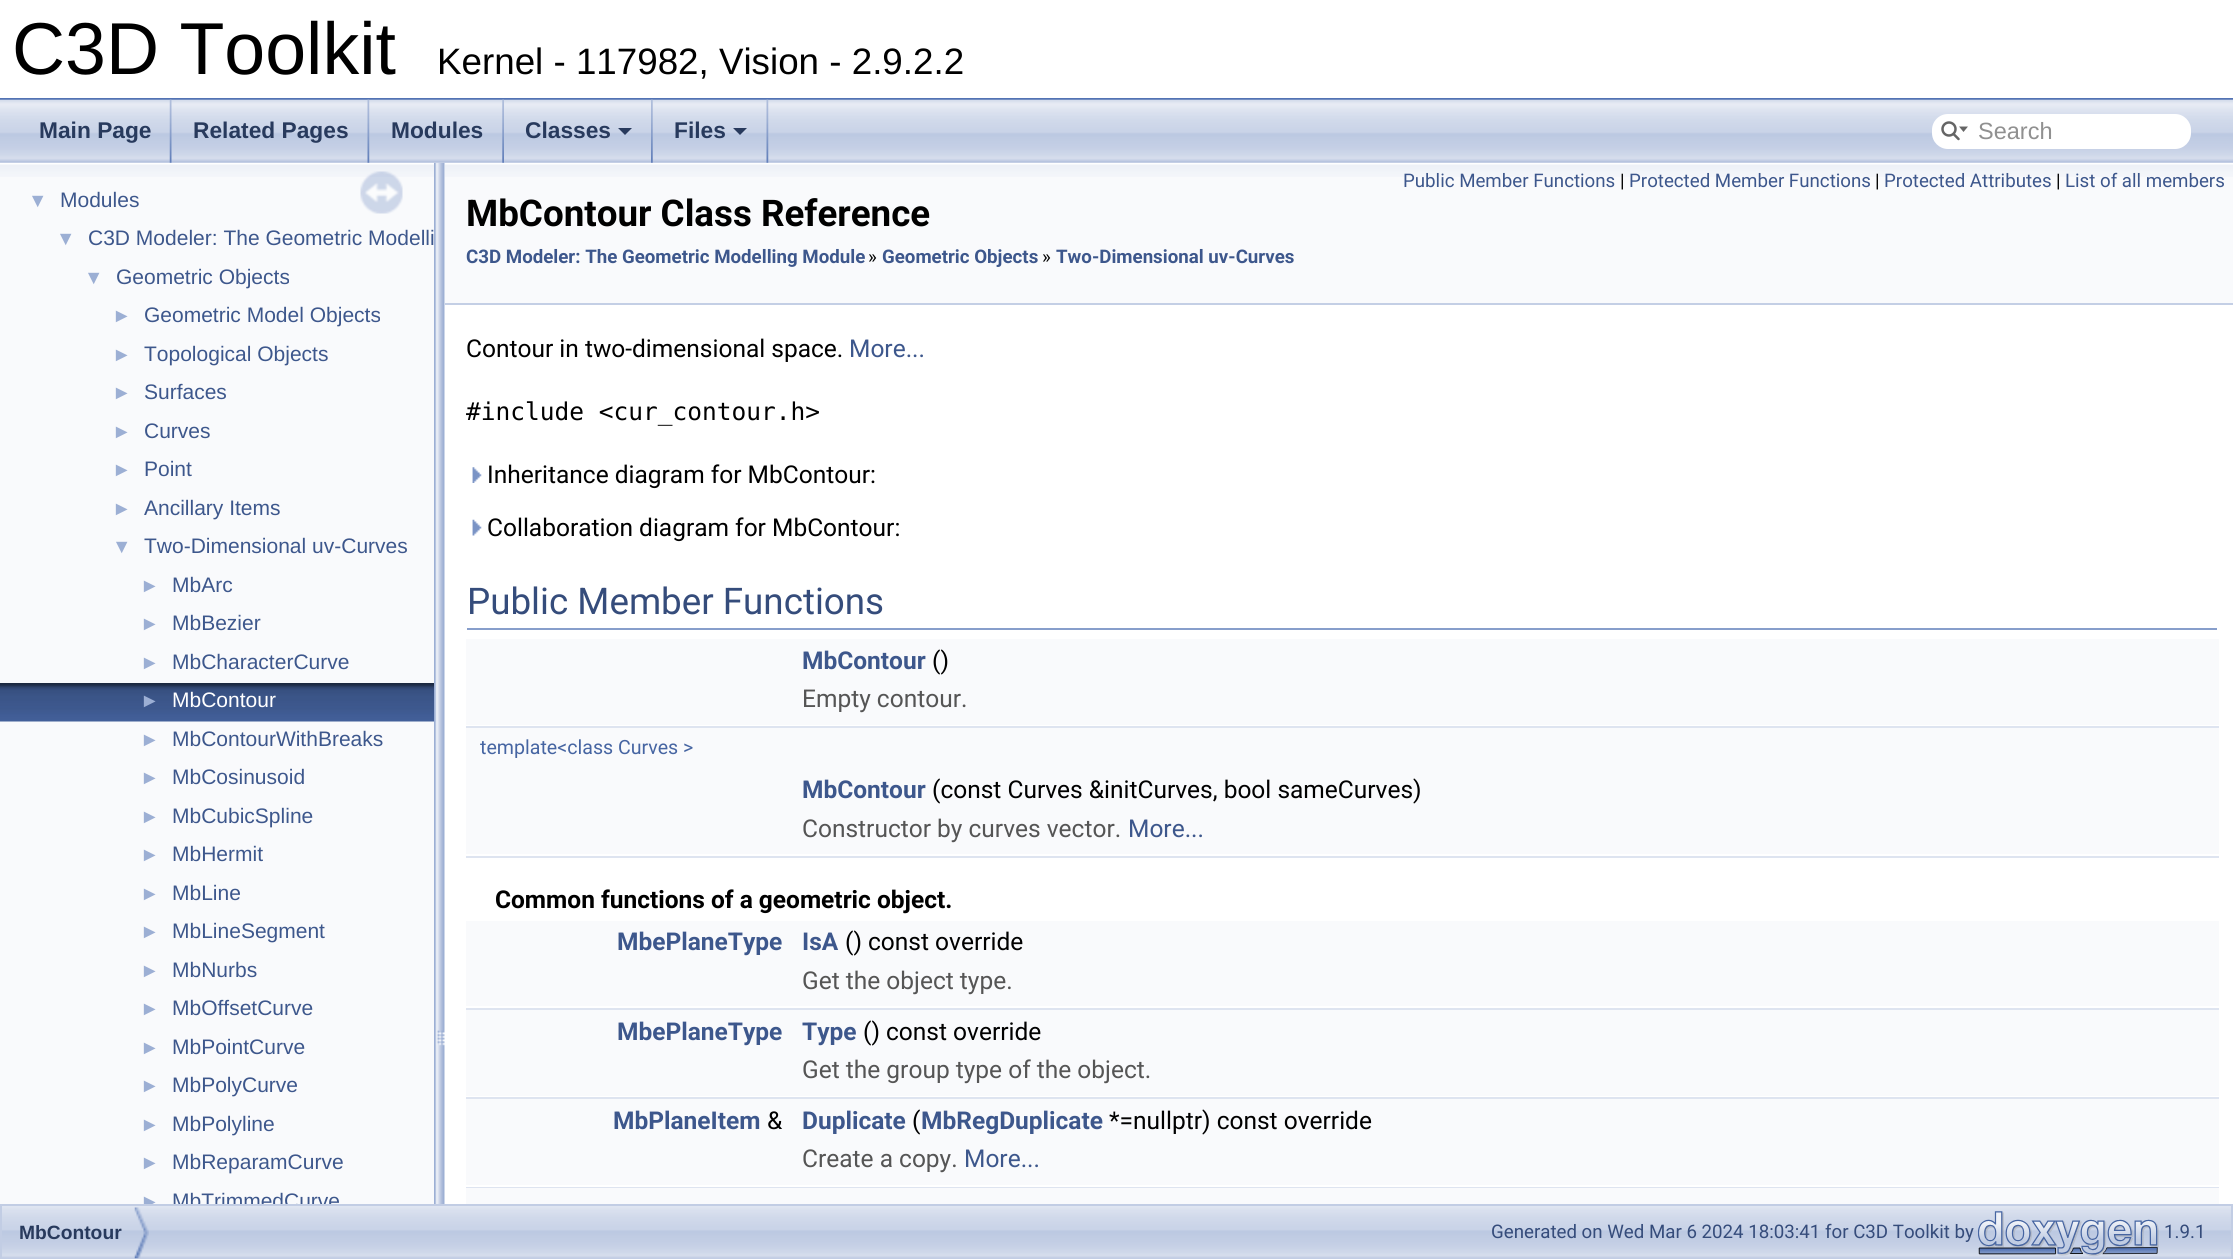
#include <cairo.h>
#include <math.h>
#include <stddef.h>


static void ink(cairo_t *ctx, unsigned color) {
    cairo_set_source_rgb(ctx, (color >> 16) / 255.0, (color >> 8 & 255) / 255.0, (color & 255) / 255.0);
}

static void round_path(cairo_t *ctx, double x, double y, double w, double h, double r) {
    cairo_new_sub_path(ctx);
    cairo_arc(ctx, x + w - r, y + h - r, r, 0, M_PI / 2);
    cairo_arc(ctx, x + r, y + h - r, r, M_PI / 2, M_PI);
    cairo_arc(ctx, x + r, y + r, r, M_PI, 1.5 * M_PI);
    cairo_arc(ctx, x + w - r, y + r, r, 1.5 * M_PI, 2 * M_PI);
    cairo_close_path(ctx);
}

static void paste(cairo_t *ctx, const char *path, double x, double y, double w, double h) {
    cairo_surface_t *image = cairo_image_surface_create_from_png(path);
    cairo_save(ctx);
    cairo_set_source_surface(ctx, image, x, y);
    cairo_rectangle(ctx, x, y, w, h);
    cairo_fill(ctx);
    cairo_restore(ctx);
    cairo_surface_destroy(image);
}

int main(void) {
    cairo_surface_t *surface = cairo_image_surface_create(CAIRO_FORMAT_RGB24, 2233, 1259);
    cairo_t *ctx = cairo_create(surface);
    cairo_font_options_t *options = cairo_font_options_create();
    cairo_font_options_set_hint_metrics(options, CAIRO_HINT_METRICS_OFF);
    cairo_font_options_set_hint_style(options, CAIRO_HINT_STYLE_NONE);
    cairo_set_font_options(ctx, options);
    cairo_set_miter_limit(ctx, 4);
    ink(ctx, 0xFFFFFF);
    cairo_paint(ctx);
    ink(ctx, 0x5373B4);
    cairo_rectangle(ctx, 0, 98, 2233, 2);
    cairo_fill(ctx);
    cairo_select_font_face(ctx, "Liberation Sans", CAIRO_FONT_SLANT_NORMAL, CAIRO_FONT_WEIGHT_NORMAL);
    cairo_set_font_size(ctx, 73.5);
    ink(ctx, 0x000000);
    cairo_move_to(ctx, 12, 74);
    cairo_show_text(ctx, "C3D Toolkit");
    cairo_set_font_size(ctx, 36.75);
    cairo_move_to(ctx, 437, 74);
    cairo_show_text(ctx, "Kernel - 117982, Vision - 2.9.2.2");
    paste(ctx, "media/10.png", 444, 163, 1789, 14);
    paste(ctx, "media/9.png", 434, 162, 11, 1042);
    paste(ctx, "media/1.png", 0, 99, 2233, 64);
    paste(ctx, "media/2.png", 169, 99, 3, 64);
    cairo_select_font_face(ctx, "Liberation Sans", CAIRO_FONT_SLANT_NORMAL, CAIRO_FONT_WEIGHT_BOLD);
    cairo_set_font_size(ctx, 22.75);
    ink(ctx, 0x283A5D);
    cairo_move_to(ctx, 39, 138);
    cairo_show_text(ctx, "Main Page");
    paste(ctx, "media/3.png", 367, 99, 3, 64);
    cairo_move_to(ctx, 193, 138);
    cairo_show_text(ctx, "Related Pages");
    paste(ctx, "media/4.png", 502, 99, 2, 64);
    cairo_move_to(ctx, 391, 138);
    cairo_show_text(ctx, "Modules");
    paste(ctx, "media/5.png", 651, 99, 2, 64);
    cairo_move_to(ctx, 525, 138);
    cairo_show_text(ctx, "Classes");
    cairo_new_path(ctx);
    cairo_move_to(ctx, 618, 128);
    cairo_line_to(ctx, 632, 128);
    cairo_line_to(ctx, 625, 135);
    cairo_close_path(ctx);
    cairo_fill(ctx);
    paste(ctx, "media/3.png", 766, 99, 3, 64);
    cairo_move_to(ctx, 674, 138);
    cairo_show_text(ctx, "Files");
    cairo_new_path(ctx);
    cairo_move_to(ctx, 733, 128);
    cairo_line_to(ctx, 747, 128);
    cairo_line_to(ctx, 740, 135);
    cairo_close_path(ctx);
    cairo_fill(ctx);
    ink(ctx, 0xFFFFFF);
    round_path(ctx, 1932, 114, 259, 35, 16);
    cairo_fill(ctx);
    cairo_arc(ctx, 1949, 129, 6.5, 0, 2 * M_PI);
    ink(ctx, 0x656565);
    cairo_set_line_width(ctx, 2.5);
    cairo_stroke(ctx);
    cairo_new_path(ctx);
    cairo_move_to(ctx, 1959, 126.5);
    cairo_line_to(ctx, 1963.5, 132);
    cairo_line_to(ctx, 1968, 126.5);
    cairo_close_path(ctx);
    cairo_fill(ctx);
    cairo_new_path(ctx);
    cairo_move_to(ctx, 1953.5, 134);
    cairo_line_to(ctx, 1958.5, 139);
    cairo_set_line_cap(ctx, CAIRO_LINE_CAP_ROUND);
    cairo_stroke(ctx);
    cairo_select_font_face(ctx, "Liberation Sans", CAIRO_FONT_SLANT_NORMAL, CAIRO_FONT_WEIGHT_NORMAL);
    cairo_set_font_size(ctx, 23.5);
    ink(ctx, 0x909090);
    cairo_move_to(ctx, 1978, 139);
    cairo_show_text(ctx, "Search");
    ink(ctx, 0xF9FAFC);
    cairo_rectangle(ctx, 0, 177, 434, 1027);
    cairo_fill(ctx);
    paste(ctx, "media/6.png", 0, 163, 434, 14);
    paste(ctx, "media/7.png", 360, 171, 43, 43);
    cairo_set_font_size(ctx, 19.6);
    ink(ctx, 0x9CAFD4);
    cairo_move_to(ctx, 28, 207);
    cairo_show_text(ctx, "▼");
    cairo_set_font_size(ctx, 21);
    ink(ctx, 0x3D578C);
    cairo_move_to(ctx, 60, 207);
    cairo_show_text(ctx, "Modules");
    cairo_set_font_size(ctx, 19.6);
    ink(ctx, 0x9CAFD4);
    cairo_move_to(ctx, 56, 245);
    cairo_show_text(ctx, "▼");
    cairo_set_font_size(ctx, 21);
    ink(ctx, 0x3D578C);
    cairo_move_to(ctx, 88, 245);
    cairo_show_text(ctx, "C3D Modeler: The Geometric Modelli");
    cairo_set_font_size(ctx, 19.6);
    ink(ctx, 0x9CAFD4);
    cairo_move_to(ctx, 84, 284);
    cairo_show_text(ctx, "▼");
    cairo_set_font_size(ctx, 21);
    ink(ctx, 0x3D578C);
    cairo_move_to(ctx, 116, 284);
    cairo_show_text(ctx, "Geometric Objects");
    cairo_set_font_size(ctx, 19.6);
    ink(ctx, 0x9CAFD4);
    cairo_move_to(ctx, 112, 322);
    cairo_show_text(ctx, "►");
    cairo_set_font_size(ctx, 21);
    ink(ctx, 0x3D578C);
    cairo_move_to(ctx, 144, 322);
    cairo_show_text(ctx, "Geometric Model Objects");
    cairo_set_font_size(ctx, 19.6);
    ink(ctx, 0x9CAFD4);
    cairo_move_to(ctx, 112, 361);
    cairo_show_text(ctx, "►");
    cairo_set_font_size(ctx, 21);
    ink(ctx, 0x3D578C);
    cairo_move_to(ctx, 144, 361);
    cairo_show_text(ctx, "Topological Objects");
    cairo_set_font_size(ctx, 19.6);
    ink(ctx, 0x9CAFD4);
    cairo_move_to(ctx, 112, 399);
    cairo_show_text(ctx, "►");
    cairo_set_font_size(ctx, 21);
    ink(ctx, 0x3D578C);
    cairo_move_to(ctx, 144, 399);
    cairo_show_text(ctx, "Surfaces");
    cairo_set_font_size(ctx, 19.6);
    ink(ctx, 0x9CAFD4);
    cairo_move_to(ctx, 112, 438);
    cairo_show_text(ctx, "►");
    cairo_set_font_size(ctx, 21);
    ink(ctx, 0x3D578C);
    cairo_move_to(ctx, 144, 438);
    cairo_show_text(ctx, "Curves");
    cairo_set_font_size(ctx, 19.6);
    ink(ctx, 0x9CAFD4);
    cairo_move_to(ctx, 112, 476);
    cairo_show_text(ctx, "►");
    cairo_set_font_size(ctx, 21);
    ink(ctx, 0x3D578C);
    cairo_move_to(ctx, 144, 476);
    cairo_show_text(ctx, "Point");
    cairo_set_font_size(ctx, 19.6);
    ink(ctx, 0x9CAFD4);
    cairo_move_to(ctx, 112, 515);
    cairo_show_text(ctx, "►");
    cairo_set_font_size(ctx, 21);
    ink(ctx, 0x3D578C);
    cairo_move_to(ctx, 144, 515);
    cairo_show_text(ctx, "Ancillary Items");
    cairo_set_font_size(ctx, 19.6);
    ink(ctx, 0x9CAFD4);
    cairo_move_to(ctx, 112, 553);
    cairo_show_text(ctx, "▼");
    cairo_set_font_size(ctx, 21);
    ink(ctx, 0x3D578C);
    cairo_move_to(ctx, 144, 553);
    cairo_show_text(ctx, "Two-Dimensional uv-Curves");
    cairo_set_font_size(ctx, 19.6);
    ink(ctx, 0x9CAFD4);
    cairo_move_to(ctx, 140, 592);
    cairo_show_text(ctx, "►");
    cairo_set_font_size(ctx, 21);
    ink(ctx, 0x3D578C);
    cairo_move_to(ctx, 172, 592);
    cairo_show_text(ctx, "MbArc");
    cairo_set_font_size(ctx, 19.6);
    ink(ctx, 0x9CAFD4);
    cairo_move_to(ctx, 140, 630);
    cairo_show_text(ctx, "►");
    cairo_set_font_size(ctx, 21);
    ink(ctx, 0x3D578C);
    cairo_move_to(ctx, 172, 630);
    cairo_show_text(ctx, "MbBezier");
    cairo_set_font_size(ctx, 19.6);
    ink(ctx, 0x9CAFD4);
    cairo_move_to(ctx, 140, 669);
    cairo_show_text(ctx, "►");
    cairo_set_font_size(ctx, 21);
    ink(ctx, 0x3D578C);
    cairo_move_to(ctx, 172, 669);
    cairo_show_text(ctx, "MbCharacterCurve");
    paste(ctx, "media/8.png", 0, 683, 434, 39);
    cairo_set_font_size(ctx, 19.6);
    ink(ctx, 0x9CAFD4);
    cairo_move_to(ctx, 140, 707);
    cairo_show_text(ctx, "►");
    cairo_set_font_size(ctx, 21);
    ink(ctx, 0xFFFFFF);
    cairo_move_to(ctx, 172, 707);
    cairo_show_text(ctx, "MbContour");
    cairo_set_font_size(ctx, 19.6);
    ink(ctx, 0x9CAFD4);
    cairo_move_to(ctx, 140, 746);
    cairo_show_text(ctx, "►");
    cairo_set_font_size(ctx, 21);
    ink(ctx, 0x3D578C);
    cairo_move_to(ctx, 172, 746);
    cairo_show_text(ctx, "MbContourWithBreaks");
    cairo_set_font_size(ctx, 19.6);
    ink(ctx, 0x9CAFD4);
    cairo_move_to(ctx, 140, 784);
    cairo_show_text(ctx, "►");
    cairo_set_font_size(ctx, 21);
    ink(ctx, 0x3D578C);
    cairo_move_to(ctx, 172, 784);
    cairo_show_text(ctx, "MbCosinusoid");
    cairo_set_font_size(ctx, 19.6);
    ink(ctx, 0x9CAFD4);
    cairo_move_to(ctx, 140, 823);
    cairo_show_text(ctx, "►");
    cairo_set_font_size(ctx, 21);
    ink(ctx, 0x3D578C);
    cairo_move_to(ctx, 172, 823);
    cairo_show_text(ctx, "MbCubicSpline");
    cairo_set_font_size(ctx, 19.6);
    ink(ctx, 0x9CAFD4);
    cairo_move_to(ctx, 140, 861);
    cairo_show_text(ctx, "►");
    cairo_set_font_size(ctx, 21);
    ink(ctx, 0x3D578C);
    cairo_move_to(ctx, 172, 861);
    cairo_show_text(ctx, "MbHermit");
    cairo_set_font_size(ctx, 19.6);
    ink(ctx, 0x9CAFD4);
    cairo_move_to(ctx, 140, 900);
    cairo_show_text(ctx, "►");
    cairo_set_font_size(ctx, 21);
    ink(ctx, 0x3D578C);
    cairo_move_to(ctx, 172, 900);
    cairo_show_text(ctx, "MbLine");
    cairo_set_font_size(ctx, 19.6);
    ink(ctx, 0x9CAFD4);
    cairo_move_to(ctx, 140, 938);
    cairo_show_text(ctx, "►");
    cairo_set_font_size(ctx, 21);
    ink(ctx, 0x3D578C);
    cairo_move_to(ctx, 172, 938);
    cairo_show_text(ctx, "MbLineSegment");
    cairo_set_font_size(ctx, 19.6);
    ink(ctx, 0x9CAFD4);
    cairo_move_to(ctx, 140, 977);
    cairo_show_text(ctx, "►");
    cairo_set_font_size(ctx, 21);
    ink(ctx, 0x3D578C);
    cairo_move_to(ctx, 172, 977);
    cairo_show_text(ctx, "MbNurbs");
    cairo_set_font_size(ctx, 19.6);
    ink(ctx, 0x9CAFD4);
    cairo_move_to(ctx, 140, 1015);
    cairo_show_text(ctx, "►");
    cairo_set_font_size(ctx, 21);
    ink(ctx, 0x3D578C);
    cairo_move_to(ctx, 172, 1015);
    cairo_show_text(ctx, "MbOffsetCurve");
    cairo_set_font_size(ctx, 19.6);
    ink(ctx, 0x9CAFD4);
    cairo_move_to(ctx, 140, 1054);
    cairo_show_text(ctx, "►");
    cairo_set_font_size(ctx, 21);
    ink(ctx, 0x3D578C);
    cairo_move_to(ctx, 172, 1054);
    cairo_show_text(ctx, "MbPointCurve");
    cairo_set_font_size(ctx, 19.6);
    ink(ctx, 0x9CAFD4);
    cairo_move_to(ctx, 140, 1092);
    cairo_show_text(ctx, "►");
    cairo_set_font_size(ctx, 21);
    ink(ctx, 0x3D578C);
    cairo_move_to(ctx, 172, 1092);
    cairo_show_text(ctx, "MbPolyCurve");
    cairo_set_font_size(ctx, 19.6);
    ink(ctx, 0x9CAFD4);
    cairo_move_to(ctx, 140, 1131);
    cairo_show_text(ctx, "►");
    cairo_set_font_size(ctx, 21);
    ink(ctx, 0x3D578C);
    cairo_move_to(ctx, 172, 1131);
    cairo_show_text(ctx, "MbPolyline");
    cairo_set_font_size(ctx, 19.6);
    ink(ctx, 0x9CAFD4);
    cairo_move_to(ctx, 140, 1169);
    cairo_show_text(ctx, "►");
    cairo_set_font_size(ctx, 21);
    ink(ctx, 0x3D578C);
    cairo_move_to(ctx, 172, 1169);
    cairo_show_text(ctx, "MbReparamCurve");
    cairo_save(ctx);
    cairo_rectangle(ctx, 0, 163, 434, 1041);
    cairo_clip(ctx);
    cairo_set_font_size(ctx, 19.6);
    ink(ctx, 0x9CAFD4);
    cairo_move_to(ctx, 140, 1208);
    cairo_show_text(ctx, "►");
    cairo_set_font_size(ctx, 21);
    ink(ctx, 0x3D578C);
    cairo_move_to(ctx, 172, 1208);
    cairo_show_text(ctx, "MbTrimmedCurve");
    cairo_restore(ctx);
    ink(ctx, 0xF9FAFC);
    cairo_rectangle(ctx, 445, 177, 1788, 126);
    cairo_fill(ctx);
    ink(ctx, 0xC4CFE5);
    cairo_rectangle(ctx, 445, 303, 1788, 2);
    cairo_fill(ctx);
    cairo_select_font_face(ctx, "Roboto", CAIRO_FONT_SLANT_NORMAL, CAIRO_FONT_WEIGHT_NORMAL);
    cairo_set_font_size(ctx, 18.7);
    ink(ctx, 0x3D578C);
    cairo_move_to(ctx, 1403, 187);
    cairo_show_text(ctx, "Public Member Functions");
    ink(ctx, 0x000000);
    cairo_move_to(ctx, 1620, 187);
    cairo_show_text(ctx, "|");
    ink(ctx, 0x3D578C);
    cairo_move_to(ctx, 1629, 187);
    cairo_show_text(ctx, "Protected Member Functions");
    ink(ctx, 0x000000);
    cairo_move_to(ctx, 1875, 187);
    cairo_show_text(ctx, "|");
    ink(ctx, 0x3D578C);
    cairo_move_to(ctx, 1884, 187);
    cairo_show_text(ctx, "Protected Attributes");
    ink(ctx, 0x000000);
    cairo_move_to(ctx, 2056, 187);
    cairo_show_text(ctx, "|");
    ink(ctx, 0x3D578C);
    cairo_move_to(ctx, 2065, 187);
    cairo_show_text(ctx, "List of all members");
    cairo_select_font_face(ctx, "Roboto", CAIRO_FONT_SLANT_NORMAL, CAIRO_FONT_WEIGHT_BOLD);
    cairo_set_font_size(ctx, 36.75);
    ink(ctx, 0x000000);
    cairo_move_to(ctx, 466, 226);
    cairo_show_text(ctx, "MbContour Class Reference");
    cairo_set_font_size(ctx, 18.7);
    ink(ctx, 0x3D578C);
    cairo_move_to(ctx, 466, 263);
    cairo_show_text(ctx, "C3D Modeler: The Geometric Modelling Module");
    cairo_select_font_face(ctx, "Roboto", CAIRO_FONT_SLANT_NORMAL, CAIRO_FONT_WEIGHT_NORMAL);
    ink(ctx, 0x000000);
    cairo_move_to(ctx, 868, 263);
    cairo_show_text(ctx, "»");
    cairo_select_font_face(ctx, "Roboto", CAIRO_FONT_SLANT_NORMAL, CAIRO_FONT_WEIGHT_BOLD);
    ink(ctx, 0x3D578C);
    cairo_move_to(ctx, 882, 263);
    cairo_show_text(ctx, "Geometric Objects");
    cairo_select_font_face(ctx, "Roboto", CAIRO_FONT_SLANT_NORMAL, CAIRO_FONT_WEIGHT_NORMAL);
    ink(ctx, 0x000000);
    cairo_move_to(ctx, 1042, 263);
    cairo_show_text(ctx, "»");
    cairo_select_font_face(ctx, "Roboto", CAIRO_FONT_SLANT_NORMAL, CAIRO_FONT_WEIGHT_BOLD);
    ink(ctx, 0x3D578C);
    cairo_move_to(ctx, 1056, 263);
    cairo_show_text(ctx, "Two-Dimensional uv-Curves");
    cairo_select_font_face(ctx, "Roboto", CAIRO_FONT_SLANT_NORMAL, CAIRO_FONT_WEIGHT_NORMAL);
    cairo_set_font_size(ctx, 24.5);
    ink(ctx, 0x000000);
    cairo_move_to(ctx, 466, 357);
    cairo_show_text(ctx, "Contour in two-dimensional space.");
    ink(ctx, 0x3D578C);
    cairo_move_to(ctx, 849, 357);
    cairo_show_text(ctx, "More...");
    cairo_select_font_face(ctx, "DejaVu Sans Mono", CAIRO_FONT_SLANT_NORMAL, CAIRO_FONT_WEIGHT_NORMAL);
    ink(ctx, 0x000000);
    cairo_move_to(ctx, 466, 420);
    cairo_show_text(ctx, "#include <cur_contour.h>");
    paste(ctx, "media/11.png", 472, 467, 10, 16);
    cairo_select_font_face(ctx, "Roboto", CAIRO_FONT_SLANT_NORMAL, CAIRO_FONT_WEIGHT_NORMAL);
    cairo_move_to(ctx, 487, 483);
    cairo_show_text(ctx, "Inheritance diagram for MbContour:");
    paste(ctx, "media/12.png", 472, 519, 10, 17);
    cairo_move_to(ctx, 487, 536);
    cairo_show_text(ctx, "Collaboration diagram for MbContour:");
    ink(ctx, 0x879ECB);
    cairo_rectangle(ctx, 467, 628, 1750, 2);
    cairo_fill(ctx);
    cairo_set_font_size(ctx, 36.75);
    ink(ctx, 0x354C7B);
    cairo_move_to(ctx, 467, 614);
    cairo_show_text(ctx, "Public Member Functions");
    ink(ctx, 0xF9FAFC);
    cairo_rectangle(ctx, 466, 639, 1753, 40);
    cairo_fill(ctx);
    cairo_select_font_face(ctx, "Roboto", CAIRO_FONT_SLANT_NORMAL, CAIRO_FONT_WEIGHT_BOLD);
    cairo_set_font_size(ctx, 24.5);
    ink(ctx, 0x3D578C);
    cairo_move_to(ctx, 802, 669);
    cairo_show_text(ctx, "MbContour");
    cairo_select_font_face(ctx, "Roboto", CAIRO_FONT_SLANT_NORMAL, CAIRO_FONT_WEIGHT_NORMAL);
    ink(ctx, 0x000000);
    cairo_move_to(ctx, 932, 669);
    cairo_show_text(ctx, "()");
    ink(ctx, 0xF9FAFC);
    cairo_rectangle(ctx, 466, 679, 1753, 46);
    cairo_fill(ctx);
    ink(ctx, 0x555555);
    cairo_move_to(ctx, 802, 707);
    cairo_show_text(ctx, "Empty contour.");
    ink(ctx, 0xDEE4F0);
    cairo_rectangle(ctx, 466, 726, 1753, 2);
    cairo_fill(ctx);
    ink(ctx, 0xF9FAFC);
    cairo_rectangle(ctx, 466, 728, 1753, 40);
    cairo_fill(ctx);
    cairo_set_font_size(ctx, 19.6);
    ink(ctx, 0x4665A2);
    cairo_move_to(ctx, 480, 754);
    cairo_show_text(ctx, "template<class Curves >");
    ink(ctx, 0xF9FAFC);
    cairo_rectangle(ctx, 466, 768, 1753, 41);
    cairo_fill(ctx);
    cairo_select_font_face(ctx, "Roboto", CAIRO_FONT_SLANT_NORMAL, CAIRO_FONT_WEIGHT_BOLD);
    cairo_set_font_size(ctx, 24.5);
    ink(ctx, 0x3D578C);
    cairo_move_to(ctx, 802, 798);
    cairo_show_text(ctx, "MbContour");
    cairo_select_font_face(ctx, "Roboto", CAIRO_FONT_SLANT_NORMAL, CAIRO_FONT_WEIGHT_NORMAL);
    ink(ctx, 0x000000);
    cairo_move_to(ctx, 932, 798);
    cairo_show_text(ctx, "(const Curves &initCurves, bool sameCurves)");
    ink(ctx, 0xF9FAFC);
    cairo_rectangle(ctx, 466, 809, 1753, 45);
    cairo_fill(ctx);
    ink(ctx, 0x555555);
    cairo_move_to(ctx, 802, 837);
    cairo_show_text(ctx, "Constructor by curves vector.");
    ink(ctx, 0x3D578C);
    cairo_move_to(ctx, 1128, 837);
    cairo_show_text(ctx, "More...");
    ink(ctx, 0xDEE4F0);
    cairo_rectangle(ctx, 466, 856, 1753, 2);
    cairo_fill(ctx);
    cairo_select_font_face(ctx, "Roboto", CAIRO_FONT_SLANT_NORMAL, CAIRO_FONT_WEIGHT_BOLD);
    ink(ctx, 0x000000);
    cairo_move_to(ctx, 495, 908);
    cairo_show_text(ctx, "Common functions of a geometric object.");
    ink(ctx, 0xF9FAFC);
    cairo_rectangle(ctx, 466, 921, 1753, 40);
    cairo_fill(ctx);
    ink(ctx, 0x3D578C);
    cairo_move_to(ctx, 617, 950);
    cairo_show_text(ctx, "MbePlaneType");
    cairo_move_to(ctx, 802, 950);
    cairo_show_text(ctx, "IsA");
    cairo_select_font_face(ctx, "Roboto", CAIRO_FONT_SLANT_NORMAL, CAIRO_FONT_WEIGHT_NORMAL);
    ink(ctx, 0x000000);
    cairo_move_to(ctx, 845, 950);
    cairo_show_text(ctx, "() const override");
    ink(ctx, 0xF9FAFC);
    cairo_rectangle(ctx, 466, 961, 1753, 45);
    cairo_fill(ctx);
    ink(ctx, 0x555555);
    cairo_move_to(ctx, 802, 989);
    cairo_show_text(ctx, "Get the object type.");
    ink(ctx, 0xDEE4F0);
    cairo_rectangle(ctx, 466, 1008, 1753, 2);
    cairo_fill(ctx);
    ink(ctx, 0xF9FAFC);
    cairo_rectangle(ctx, 466, 1010, 1753, 40);
    cairo_fill(ctx);
    cairo_select_font_face(ctx, "Roboto", CAIRO_FONT_SLANT_NORMAL, CAIRO_FONT_WEIGHT_BOLD);
    ink(ctx, 0x3D578C);
    cairo_move_to(ctx, 617, 1040);
    cairo_show_text(ctx, "MbePlaneType");
    cairo_move_to(ctx, 802, 1040);
    cairo_show_text(ctx, "Type");
    cairo_select_font_face(ctx, "Roboto", CAIRO_FONT_SLANT_NORMAL, CAIRO_FONT_WEIGHT_NORMAL);
    ink(ctx, 0x000000);
    cairo_move_to(ctx, 863, 1040);
    cairo_show_text(ctx, "() const override");
    ink(ctx, 0xF9FAFC);
    cairo_rectangle(ctx, 466, 1050, 1753, 46);
    cairo_fill(ctx);
    ink(ctx, 0x555555);
    cairo_move_to(ctx, 802, 1078);
    cairo_show_text(ctx, "Get the group type of the object.");
    ink(ctx, 0xDEE4F0);
    cairo_rectangle(ctx, 466, 1097, 1753, 2);
    cairo_fill(ctx);
    ink(ctx, 0xF9FAFC);
    cairo_rectangle(ctx, 466, 1099, 1753, 40);
    cairo_fill(ctx);
    cairo_select_font_face(ctx, "Roboto", CAIRO_FONT_SLANT_NORMAL, CAIRO_FONT_WEIGHT_BOLD);
    ink(ctx, 0x3D578C);
    cairo_move_to(ctx, 613, 1129);
    cairo_show_text(ctx, "MbPlaneItem");
    cairo_select_font_face(ctx, "Roboto", CAIRO_FONT_SLANT_NORMAL, CAIRO_FONT_WEIGHT_NORMAL);
    ink(ctx, 0x000000);
    cairo_move_to(ctx, 767, 1129);
    cairo_show_text(ctx, "&");
    cairo_select_font_face(ctx, "Roboto", CAIRO_FONT_SLANT_NORMAL, CAIRO_FONT_WEIGHT_BOLD);
    ink(ctx, 0x3D578C);
    cairo_move_to(ctx, 802, 1129);
    cairo_show_text(ctx, "Duplicate");
    cairo_select_font_face(ctx, "Roboto", CAIRO_FONT_SLANT_NORMAL, CAIRO_FONT_WEIGHT_NORMAL);
    ink(ctx, 0x000000);
    cairo_move_to(ctx, 912, 1129);
    cairo_show_text(ctx, "(");
    cairo_select_font_face(ctx, "Roboto", CAIRO_FONT_SLANT_NORMAL, CAIRO_FONT_WEIGHT_BOLD);
    ink(ctx, 0x3D578C);
    cairo_move_to(ctx, 921, 1129);
    cairo_show_text(ctx, "MbRegDuplicate");
    cairo_select_font_face(ctx, "Roboto", CAIRO_FONT_SLANT_NORMAL, CAIRO_FONT_WEIGHT_NORMAL);
    ink(ctx, 0x000000);
    cairo_move_to(ctx, 1109, 1129);
    cairo_show_text(ctx, "*=nullptr) const override");
    ink(ctx, 0xF9FAFC);
    cairo_rectangle(ctx, 466, 1139, 1753, 46);
    cairo_fill(ctx);
    ink(ctx, 0x555555);
    cairo_move_to(ctx, 802, 1167);
    cairo_show_text(ctx, "Create a copy.");
    ink(ctx, 0x3D578C);
    cairo_move_to(ctx, 964, 1167);
    cairo_show_text(ctx, "More...");
    ink(ctx, 0xDEE4F0);
    cairo_rectangle(ctx, 466, 1187, 1753, 1);
    cairo_fill(ctx);
    ink(ctx, 0xF9FAFC);
    cairo_rectangle(ctx, 466, 1188, 1753, 16);
    cairo_fill(ctx);
    paste(ctx, "media/13.png", 2, 1206, 2229, 52);
    cairo_rectangle(ctx, 1, 1205, 2231, 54);
    ink(ctx, 0xC2CDE4);
    cairo_set_line_width(ctx, 2);
    cairo_set_line_cap(ctx, CAIRO_LINE_CAP_BUTT);
    cairo_stroke(ctx);
    paste(ctx, "media/14.png", 134, 1207, 15, 52);
    cairo_select_font_face(ctx, "Liberation Sans", CAIRO_FONT_SLANT_NORMAL, CAIRO_FONT_WEIGHT_BOLD);
    cairo_set_font_size(ctx, 19.25);
    ink(ctx, 0x283A5D);
    cairo_move_to(ctx, 19, 1239);
    cairo_show_text(ctx, "MbContour");
    cairo_select_font_face(ctx, "Roboto", CAIRO_FONT_SLANT_NORMAL, CAIRO_FONT_WEIGHT_NORMAL);
    cairo_set_font_size(ctx, 18.7);
    ink(ctx, 0x354C7B);
    cairo_move_to(ctx, 1491, 1238);
    cairo_show_text(ctx, "Generated on Wed Mar 6 2024 18:03:41 for C3D Toolkit by");
    paste(ctx, "media/15.png", 1978, 1211, 181, 46);
    cairo_move_to(ctx, 2164, 1238);
    cairo_show_text(ctx, "1.9.1");
    cairo_surface_write_to_png(surface, "image.png");
    cairo_font_options_destroy(options);
    cairo_destroy(ctx);
    cairo_surface_destroy(surface);
    return 0;
}
